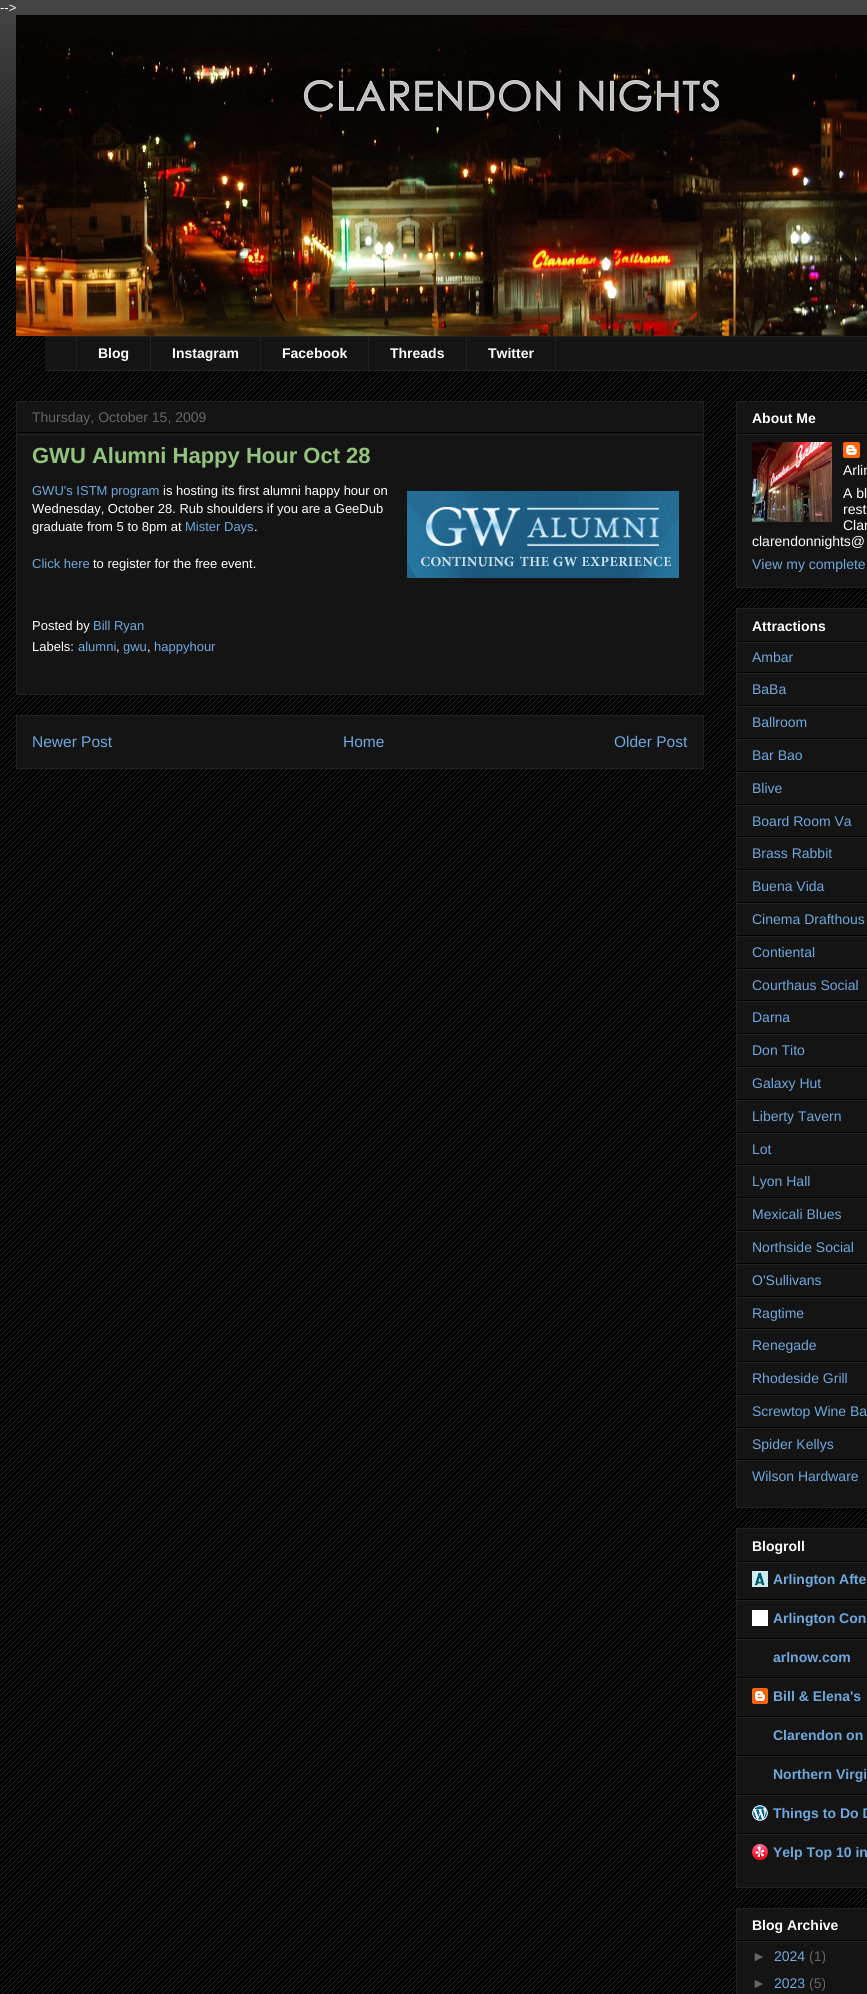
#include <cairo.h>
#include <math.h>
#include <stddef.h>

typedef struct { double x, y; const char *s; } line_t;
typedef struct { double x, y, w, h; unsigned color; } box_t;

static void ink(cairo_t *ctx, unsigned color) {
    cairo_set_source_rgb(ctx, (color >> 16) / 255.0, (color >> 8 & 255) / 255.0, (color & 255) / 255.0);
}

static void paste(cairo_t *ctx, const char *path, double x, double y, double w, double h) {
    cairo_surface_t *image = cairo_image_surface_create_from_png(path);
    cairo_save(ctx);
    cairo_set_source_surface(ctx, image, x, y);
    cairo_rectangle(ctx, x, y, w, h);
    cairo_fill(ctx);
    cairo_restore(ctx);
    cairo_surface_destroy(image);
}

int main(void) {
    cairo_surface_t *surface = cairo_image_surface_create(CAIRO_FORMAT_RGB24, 867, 1994);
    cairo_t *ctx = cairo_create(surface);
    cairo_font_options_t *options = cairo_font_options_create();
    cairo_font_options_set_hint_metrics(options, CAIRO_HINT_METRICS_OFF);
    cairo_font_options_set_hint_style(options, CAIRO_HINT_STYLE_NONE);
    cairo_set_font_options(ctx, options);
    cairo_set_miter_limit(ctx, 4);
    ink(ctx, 0x000000);
    cairo_paint(ctx);
    paste(ctx, "media/1.png", 0, 13, 867, 1981);
    paste(ctx, "media/2.png", 0, 0, 867, 268);
    cairo_select_font_face(ctx, "Liberation Sans", CAIRO_FONT_SLANT_NORMAL, CAIRO_FONT_WEIGHT_NORMAL);
    cairo_set_font_size(ctx, 13);
    ink(ctx, 0xFFFFFF);
    cairo_move_to(ctx, 0, 12);
    cairo_show_text(ctx, "-->");
    paste(ctx, "media/3.png", 16, 15, 851, 321);
    {
        static const box_t items[] = {
            {45, 337, 822, 33, 0x141414},
            {45, 336, 822, 1, 0x222222},
            {76, 336, 1, 35, 0x222222},
        };
        for (size_t i = 0; i < sizeof items / sizeof *items; i++) {
            ink(ctx, items[i].color);
            cairo_rectangle(ctx, items[i].x, items[i].y, items[i].w, items[i].h);
            cairo_fill(ctx);
        }
    }
    cairo_select_font_face(ctx, "Liberation Sans", CAIRO_FONT_SLANT_NORMAL, CAIRO_FONT_WEIGHT_BOLD);
    cairo_set_font_size(ctx, 14);
    ink(ctx, 0xFFFFFF);
    cairo_move_to(ctx, 98, 358);
    cairo_show_text(ctx, "Blog");
    ink(ctx, 0x222222);
    cairo_rectangle(ctx, 150, 336, 1, 35);
    cairo_fill(ctx);
    ink(ctx, 0xFFFFFF);
    cairo_move_to(ctx, 172, 358);
    cairo_show_text(ctx, "Instagram");
    ink(ctx, 0x222222);
    cairo_rectangle(ctx, 260, 336, 1, 35);
    cairo_fill(ctx);
    ink(ctx, 0xFFFFFF);
    cairo_move_to(ctx, 282, 358);
    cairo_show_text(ctx, "Facebook");
    ink(ctx, 0x222222);
    cairo_rectangle(ctx, 368, 336, 1, 35);
    cairo_fill(ctx);
    ink(ctx, 0xFFFFFF);
    cairo_move_to(ctx, 390, 358);
    cairo_show_text(ctx, "Threads");
    cairo_rectangle(ctx, 466.5, 336.5, 89, 34);
    ink(ctx, 0x222222);
    cairo_set_line_width(ctx, 1);
    cairo_stroke(ctx);
    ink(ctx, 0xFFFFFF);
    cairo_move_to(ctx, 488, 358);
    cairo_show_text(ctx, "Twitter");
    ink(ctx, 0x222222);
    cairo_rectangle(ctx, 45, 370, 822, 1);
    cairo_fill(ctx);
    ink(ctx, 0x141414);
    cairo_rectangle(ctx, 16.5, 401.5, 687, 293);
    cairo_fill_preserve(ctx);
    ink(ctx, 0x222222);
    cairo_stroke(ctx);
    ink(ctx, 0x000000);
    cairo_rectangle(ctx, 17, 432, 686, 1);
    cairo_fill(ctx);
    cairo_select_font_face(ctx, "Liberation Sans", CAIRO_FONT_SLANT_NORMAL, CAIRO_FONT_WEIGHT_NORMAL);
    ink(ctx, 0x666666);
    cairo_move_to(ctx, 32, 422);
    cairo_show_text(ctx, "Thursday, October 15, 2009");
    ink(ctx, 0x222222);
    cairo_rectangle(ctx, 17, 434, 686, 1);
    cairo_fill(ctx);
    cairo_select_font_face(ctx, "Liberation Sans", CAIRO_FONT_SLANT_NORMAL, CAIRO_FONT_WEIGHT_BOLD);
    cairo_set_font_size(ctx, 22);
    ink(ctx, 0x93C47D);
    cairo_move_to(ctx, 32, 463);
    cairo_show_text(ctx, "GWU Alumni Happy Hour Oct 28");
    cairo_select_font_face(ctx, "Liberation Sans", CAIRO_FONT_SLANT_NORMAL, CAIRO_FONT_WEIGHT_NORMAL);
    cairo_set_font_size(ctx, 13);
    ink(ctx, 0x6FA8DC);
    cairo_move_to(ctx, 32, 495);
    cairo_show_text(ctx, "GWU's ISTM program");
    ink(ctx, 0xFFFFFF);
    cairo_move_to(ctx, 163, 495);
    cairo_show_text(ctx, "is hosting its first alumni happy hour on");
    paste(ctx, "media/4.png", 407, 491, 272, 87);
    cairo_move_to(ctx, 32, 513);
    cairo_show_text(ctx, "Wednesday, October 28. Rub shoulders if you are a GeeDub");
    cairo_move_to(ctx, 32, 531);
    cairo_show_text(ctx, "graduate from 5 to 8pm at");
    ink(ctx, 0x6FA8DC);
    cairo_move_to(ctx, 185, 531);
    cairo_show_text(ctx, "Mister Days");
    ink(ctx, 0xFFFFFF);
    cairo_move_to(ctx, 254, 531);
    cairo_show_text(ctx, ".");
    ink(ctx, 0x6FA8DC);
    cairo_move_to(ctx, 32, 568);
    cairo_show_text(ctx, "Click here");
    ink(ctx, 0xFFFFFF);
    cairo_move_to(ctx, 93, 568);
    cairo_show_text(ctx, "to register for the free event.");
    cairo_move_to(ctx, 32, 630);
    cairo_show_text(ctx, "Posted by");
    ink(ctx, 0x6FA8DC);
    cairo_move_to(ctx, 93, 630);
    cairo_show_text(ctx, "Bill Ryan");
    ink(ctx, 0xFFFFFF);
    cairo_move_to(ctx, 32, 651);
    cairo_show_text(ctx, "Labels:");
    ink(ctx, 0x6FA8DC);
    cairo_move_to(ctx, 78, 651);
    cairo_show_text(ctx, "alumni");
    ink(ctx, 0xFFFFFF);
    cairo_move_to(ctx, 116, 651);
    cairo_show_text(ctx, ",");
    ink(ctx, 0x6FA8DC);
    cairo_move_to(ctx, 123, 651);
    cairo_show_text(ctx, "gwu");
    ink(ctx, 0xFFFFFF);
    cairo_move_to(ctx, 147, 651);
    cairo_show_text(ctx, ",");
    ink(ctx, 0x6FA8DC);
    cairo_move_to(ctx, 154, 651);
    cairo_show_text(ctx, "happyhour");
    ink(ctx, 0x141414);
    cairo_rectangle(ctx, 16.5, 715.5, 687, 53);
    cairo_fill_preserve(ctx);
    ink(ctx, 0x222222);
    cairo_stroke(ctx);
    cairo_set_font_size(ctx, 15.5);
    ink(ctx, 0x6FA8DC);
    {
        static const line_t items[] = {
            {32, 747, "Newer Post"},
            {343, 747, "Home"},
            {614, 747, "Older Post"},
        };
        for (size_t i = 0; i < sizeof items / sizeof *items; i++) {
            cairo_move_to(ctx, items[i].x, items[i].y);
            cairo_show_text(ctx, items[i].s);
        }
    }
    ink(ctx, 0x141414);
    cairo_rectangle(ctx, 736.5, 401.5, 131, 186);
    cairo_fill_preserve(ctx);
    ink(ctx, 0x222222);
    cairo_stroke(ctx);
    ink(ctx, 0x000000);
    cairo_rectangle(ctx, 737, 433, 130, 1);
    cairo_fill(ctx);
    cairo_select_font_face(ctx, "Liberation Sans", CAIRO_FONT_SLANT_NORMAL, CAIRO_FONT_WEIGHT_BOLD);
    cairo_set_font_size(ctx, 14);
    ink(ctx, 0xFFFFFF);
    cairo_move_to(ctx, 752, 423);
    cairo_show_text(ctx, "About Me");
    ink(ctx, 0x222222);
    cairo_rectangle(ctx, 737, 434, 130, 1);
    cairo_fill(ctx);
    paste(ctx, "media/5.png", 752, 442, 80, 80);
    paste(ctx, "media/6.png", 843, 442, 17, 16);
    cairo_select_font_face(ctx, "Liberation Sans", CAIRO_FONT_SLANT_NORMAL, CAIRO_FONT_WEIGHT_NORMAL);
    ink(ctx, 0xFFFFFF);
    {
        static const line_t items[] = {
            {843, 475, "Arlin"},
            {843, 498, "A bl"},
            {843, 514, "rest"},
            {843, 530, "Clar"},
            {752, 546, "clarendonnights@"},
        };
        for (size_t i = 0; i < sizeof items / sizeof *items; i++) {
            cairo_move_to(ctx, items[i].x, items[i].y);
            cairo_show_text(ctx, items[i].s);
        }
    }
    ink(ctx, 0x6FA8DC);
    cairo_move_to(ctx, 752, 569);
    cairo_show_text(ctx, "View my complete");
    ink(ctx, 0x141414);
    cairo_rectangle(ctx, 736.5, 608.5, 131, 899);
    cairo_fill_preserve(ctx);
    ink(ctx, 0x222222);
    cairo_stroke(ctx);
    ink(ctx, 0x000000);
    cairo_rectangle(ctx, 737, 641, 130, 1);
    cairo_fill(ctx);
    cairo_select_font_face(ctx, "Liberation Sans", CAIRO_FONT_SLANT_NORMAL, CAIRO_FONT_WEIGHT_BOLD);
    ink(ctx, 0xFFFFFF);
    cairo_move_to(ctx, 752, 631);
    cairo_show_text(ctx, "Attractions");
    ink(ctx, 0x222222);
    cairo_rectangle(ctx, 737, 642, 130, 1);
    cairo_fill(ctx);
    ink(ctx, 0x000000);
    cairo_rectangle(ctx, 737, 672, 130, 1);
    cairo_fill(ctx);
    cairo_select_font_face(ctx, "Liberation Sans", CAIRO_FONT_SLANT_NORMAL, CAIRO_FONT_WEIGHT_NORMAL);
    ink(ctx, 0x6FA8DC);
    cairo_move_to(ctx, 752, 662);
    cairo_show_text(ctx, "Ambar");
    ink(ctx, 0x222222);
    cairo_rectangle(ctx, 737, 673, 130, 1);
    cairo_fill(ctx);
    ink(ctx, 0x000000);
    cairo_rectangle(ctx, 737, 705, 130, 1);
    cairo_fill(ctx);
    ink(ctx, 0x6FA8DC);
    cairo_move_to(ctx, 752, 694);
    cairo_show_text(ctx, "BaBa");
    ink(ctx, 0x222222);
    cairo_rectangle(ctx, 737, 706, 130, 1);
    cairo_fill(ctx);
    ink(ctx, 0x000000);
    cairo_rectangle(ctx, 737, 738, 130, 1);
    cairo_fill(ctx);
    ink(ctx, 0x6FA8DC);
    cairo_move_to(ctx, 752, 727);
    cairo_show_text(ctx, "Ballroom");
    ink(ctx, 0x222222);
    cairo_rectangle(ctx, 737, 739, 130, 1);
    cairo_fill(ctx);
    ink(ctx, 0x000000);
    cairo_rectangle(ctx, 737, 771, 130, 1);
    cairo_fill(ctx);
    ink(ctx, 0x6FA8DC);
    cairo_move_to(ctx, 752, 760);
    cairo_show_text(ctx, "Bar Bao");
    ink(ctx, 0x222222);
    cairo_rectangle(ctx, 737, 772, 130, 1);
    cairo_fill(ctx);
    ink(ctx, 0x000000);
    cairo_rectangle(ctx, 737, 804, 130, 1);
    cairo_fill(ctx);
    ink(ctx, 0x6FA8DC);
    cairo_move_to(ctx, 752, 793);
    cairo_show_text(ctx, "Blive");
    ink(ctx, 0x222222);
    cairo_rectangle(ctx, 737, 805, 130, 1);
    cairo_fill(ctx);
    ink(ctx, 0x000000);
    cairo_rectangle(ctx, 737, 836, 130, 1);
    cairo_fill(ctx);
    ink(ctx, 0x6FA8DC);
    cairo_move_to(ctx, 752, 826);
    cairo_show_text(ctx, "Board Room Va");
    ink(ctx, 0x222222);
    cairo_rectangle(ctx, 737, 837, 130, 1);
    cairo_fill(ctx);
    ink(ctx, 0x000000);
    cairo_rectangle(ctx, 737, 869, 130, 1);
    cairo_fill(ctx);
    ink(ctx, 0x6FA8DC);
    cairo_move_to(ctx, 752, 858);
    cairo_show_text(ctx, "Brass Rabbit");
    ink(ctx, 0x222222);
    cairo_rectangle(ctx, 737, 870, 130, 1);
    cairo_fill(ctx);
    ink(ctx, 0x000000);
    cairo_rectangle(ctx, 737, 902, 130, 1);
    cairo_fill(ctx);
    ink(ctx, 0x6FA8DC);
    cairo_move_to(ctx, 752, 891);
    cairo_show_text(ctx, "Buena Vida");
    ink(ctx, 0x222222);
    cairo_rectangle(ctx, 737, 903, 130, 1);
    cairo_fill(ctx);
    ink(ctx, 0x000000);
    cairo_rectangle(ctx, 737, 935, 130, 1);
    cairo_fill(ctx);
    ink(ctx, 0x6FA8DC);
    cairo_move_to(ctx, 752, 924);
    cairo_show_text(ctx, "Cinema Drafthous");
    ink(ctx, 0x222222);
    cairo_rectangle(ctx, 737, 936, 130, 1);
    cairo_fill(ctx);
    ink(ctx, 0x000000);
    cairo_rectangle(ctx, 737, 968, 130, 1);
    cairo_fill(ctx);
    ink(ctx, 0x6FA8DC);
    cairo_move_to(ctx, 752, 957);
    cairo_show_text(ctx, "Contiental");
    ink(ctx, 0x222222);
    cairo_rectangle(ctx, 737, 969, 130, 1);
    cairo_fill(ctx);
    ink(ctx, 0x000000);
    cairo_rectangle(ctx, 737, 1000, 130, 1);
    cairo_fill(ctx);
    ink(ctx, 0x6FA8DC);
    cairo_move_to(ctx, 752, 990);
    cairo_show_text(ctx, "Courthaus Social");
    ink(ctx, 0x222222);
    cairo_rectangle(ctx, 737, 1001, 130, 1);
    cairo_fill(ctx);
    ink(ctx, 0x000000);
    cairo_rectangle(ctx, 737, 1033, 130, 1);
    cairo_fill(ctx);
    ink(ctx, 0x6FA8DC);
    cairo_move_to(ctx, 752, 1022);
    cairo_show_text(ctx, "Darna");
    ink(ctx, 0x222222);
    cairo_rectangle(ctx, 737, 1034, 130, 1);
    cairo_fill(ctx);
    ink(ctx, 0x000000);
    cairo_rectangle(ctx, 737, 1066, 130, 1);
    cairo_fill(ctx);
    ink(ctx, 0x6FA8DC);
    cairo_move_to(ctx, 752, 1055);
    cairo_show_text(ctx, "Don Tito");
    ink(ctx, 0x222222);
    cairo_rectangle(ctx, 737, 1067, 130, 1);
    cairo_fill(ctx);
    ink(ctx, 0x000000);
    cairo_rectangle(ctx, 737, 1099, 130, 1);
    cairo_fill(ctx);
    ink(ctx, 0x6FA8DC);
    cairo_move_to(ctx, 752, 1088);
    cairo_show_text(ctx, "Galaxy Hut");
    ink(ctx, 0x222222);
    cairo_rectangle(ctx, 737, 1100, 130, 1);
    cairo_fill(ctx);
    ink(ctx, 0x000000);
    cairo_rectangle(ctx, 737, 1132, 130, 1);
    cairo_fill(ctx);
    ink(ctx, 0x6FA8DC);
    cairo_move_to(ctx, 752, 1121);
    cairo_show_text(ctx, "Liberty Tavern");
    ink(ctx, 0x222222);
    cairo_rectangle(ctx, 737, 1133, 130, 1);
    cairo_fill(ctx);
    ink(ctx, 0x000000);
    cairo_rectangle(ctx, 737, 1164, 130, 1);
    cairo_fill(ctx);
    ink(ctx, 0x6FA8DC);
    cairo_move_to(ctx, 752, 1154);
    cairo_show_text(ctx, "Lot");
    ink(ctx, 0x222222);
    cairo_rectangle(ctx, 737, 1165, 130, 1);
    cairo_fill(ctx);
    ink(ctx, 0x000000);
    cairo_rectangle(ctx, 737, 1197, 130, 1);
    cairo_fill(ctx);
    ink(ctx, 0x6FA8DC);
    cairo_move_to(ctx, 752, 1186);
    cairo_show_text(ctx, "Lyon Hall");
    ink(ctx, 0x222222);
    cairo_rectangle(ctx, 737, 1198, 130, 1);
    cairo_fill(ctx);
    ink(ctx, 0x000000);
    cairo_rectangle(ctx, 737, 1230, 130, 1);
    cairo_fill(ctx);
    ink(ctx, 0x6FA8DC);
    cairo_move_to(ctx, 752, 1219);
    cairo_show_text(ctx, "Mexicali Blues");
    ink(ctx, 0x222222);
    cairo_rectangle(ctx, 737, 1231, 130, 1);
    cairo_fill(ctx);
    ink(ctx, 0x000000);
    cairo_rectangle(ctx, 737, 1263, 130, 1);
    cairo_fill(ctx);
    ink(ctx, 0x6FA8DC);
    cairo_move_to(ctx, 752, 1252);
    cairo_show_text(ctx, "Northside Social");
    ink(ctx, 0x222222);
    cairo_rectangle(ctx, 737, 1264, 130, 1);
    cairo_fill(ctx);
    ink(ctx, 0x000000);
    cairo_rectangle(ctx, 737, 1296, 130, 1);
    cairo_fill(ctx);
    ink(ctx, 0x6FA8DC);
    cairo_move_to(ctx, 752, 1285);
    cairo_show_text(ctx, "O'Sullivans");
    ink(ctx, 0x222222);
    cairo_rectangle(ctx, 737, 1297, 130, 1);
    cairo_fill(ctx);
    ink(ctx, 0x000000);
    cairo_rectangle(ctx, 737, 1328, 130, 1);
    cairo_fill(ctx);
    ink(ctx, 0x6FA8DC);
    cairo_move_to(ctx, 752, 1318);
    cairo_show_text(ctx, "Ragtime");
    ink(ctx, 0x222222);
    cairo_rectangle(ctx, 737, 1329, 130, 1);
    cairo_fill(ctx);
    ink(ctx, 0x000000);
    cairo_rectangle(ctx, 737, 1361, 130, 1);
    cairo_fill(ctx);
    ink(ctx, 0x6FA8DC);
    cairo_move_to(ctx, 752, 1350);
    cairo_show_text(ctx, "Renegade");
    ink(ctx, 0x222222);
    cairo_rectangle(ctx, 737, 1362, 130, 1);
    cairo_fill(ctx);
    ink(ctx, 0x000000);
    cairo_rectangle(ctx, 737, 1394, 130, 1);
    cairo_fill(ctx);
    ink(ctx, 0x6FA8DC);
    cairo_move_to(ctx, 752, 1383);
    cairo_show_text(ctx, "Rhodeside Grill");
    ink(ctx, 0x222222);
    cairo_rectangle(ctx, 737, 1395, 130, 1);
    cairo_fill(ctx);
    ink(ctx, 0x000000);
    cairo_rectangle(ctx, 737, 1427, 130, 1);
    cairo_fill(ctx);
    ink(ctx, 0x6FA8DC);
    cairo_move_to(ctx, 752, 1416);
    cairo_show_text(ctx, "Screwtop Wine Ba");
    ink(ctx, 0x222222);
    cairo_rectangle(ctx, 737, 1428, 130, 1);
    cairo_fill(ctx);
    ink(ctx, 0x000000);
    cairo_rectangle(ctx, 737, 1459, 130, 1);
    cairo_fill(ctx);
    ink(ctx, 0x6FA8DC);
    cairo_move_to(ctx, 752, 1449);
    cairo_show_text(ctx, "Spider Kellys");
    ink(ctx, 0x222222);
    cairo_rectangle(ctx, 737, 1460, 130, 1);
    cairo_fill(ctx);
    ink(ctx, 0x6FA8DC);
    cairo_move_to(ctx, 752, 1481);
    cairo_show_text(ctx, "Wilson Hardware");
    ink(ctx, 0x141414);
    cairo_rectangle(ctx, 736.5, 1528.5, 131, 359);
    cairo_fill_preserve(ctx);
    ink(ctx, 0x222222);
    cairo_stroke(ctx);
    ink(ctx, 0x000000);
    cairo_rectangle(ctx, 737, 1561, 130, 1);
    cairo_fill(ctx);
    cairo_select_font_face(ctx, "Liberation Sans", CAIRO_FONT_SLANT_NORMAL, CAIRO_FONT_WEIGHT_BOLD);
    ink(ctx, 0xFFFFFF);
    cairo_move_to(ctx, 752, 1551);
    cairo_show_text(ctx, "Blogroll");
    ink(ctx, 0x222222);
    cairo_rectangle(ctx, 737, 1562, 130, 1);
    cairo_fill(ctx);
    ink(ctx, 0x000000);
    cairo_rectangle(ctx, 737, 1599, 130, 1);
    cairo_fill(ctx);
    paste(ctx, "media/7.png", 752, 1571, 16, 16);
    ink(ctx, 0x6FA8DC);
    cairo_move_to(ctx, 773, 1584);
    cairo_show_text(ctx, "Arlington Afte");
    {
        static const box_t items[] = {
            {737, 1600, 130, 1, 0x222222},
            {737, 1638, 130, 1, 0x000000},
            {752, 1610, 16, 16, 0xFFFFFF},
        };
        for (size_t i = 0; i < sizeof items / sizeof *items; i++) {
            ink(ctx, items[i].color);
            cairo_rectangle(ctx, items[i].x, items[i].y, items[i].w, items[i].h);
            cairo_fill(ctx);
        }
    }
    ink(ctx, 0x6FA8DC);
    cairo_move_to(ctx, 773, 1623);
    cairo_show_text(ctx, "Arlington Con");
    ink(ctx, 0x222222);
    cairo_rectangle(ctx, 737, 1639, 130, 1);
    cairo_fill(ctx);
    ink(ctx, 0x000000);
    cairo_rectangle(ctx, 737, 1677, 130, 1);
    cairo_fill(ctx);
    ink(ctx, 0x6FA8DC);
    cairo_move_to(ctx, 773, 1662);
    cairo_show_text(ctx, "arlnow.com");
    ink(ctx, 0x222222);
    cairo_rectangle(ctx, 737, 1678, 130, 1);
    cairo_fill(ctx);
    ink(ctx, 0x000000);
    cairo_rectangle(ctx, 737, 1716, 130, 1);
    cairo_fill(ctx);
    paste(ctx, "media/8.png", 752, 1688, 16, 16);
    ink(ctx, 0x6FA8DC);
    cairo_move_to(ctx, 773, 1701);
    cairo_show_text(ctx, "Bill & Elena's");
    ink(ctx, 0x222222);
    cairo_rectangle(ctx, 737, 1717, 130, 1);
    cairo_fill(ctx);
    ink(ctx, 0x000000);
    cairo_rectangle(ctx, 737, 1755, 130, 1);
    cairo_fill(ctx);
    ink(ctx, 0x6FA8DC);
    cairo_move_to(ctx, 773, 1740);
    cairo_show_text(ctx, "Clarendon on");
    ink(ctx, 0x222222);
    cairo_rectangle(ctx, 737, 1756, 130, 1);
    cairo_fill(ctx);
    ink(ctx, 0x000000);
    cairo_rectangle(ctx, 737, 1794, 130, 1);
    cairo_fill(ctx);
    ink(ctx, 0x6FA8DC);
    cairo_move_to(ctx, 773, 1779);
    cairo_show_text(ctx, "Northern Virgi");
    ink(ctx, 0x222222);
    cairo_rectangle(ctx, 737, 1795, 130, 1);
    cairo_fill(ctx);
    ink(ctx, 0x000000);
    cairo_rectangle(ctx, 737, 1833, 130, 1);
    cairo_fill(ctx);
    paste(ctx, "media/9.png", 752, 1805, 16, 16);
    ink(ctx, 0x6FA8DC);
    cairo_move_to(ctx, 773, 1818);
    cairo_show_text(ctx, "Things to Do D");
    ink(ctx, 0x222222);
    cairo_rectangle(ctx, 737, 1834, 130, 1);
    cairo_fill(ctx);
    paste(ctx, "media/10.png", 752, 1844, 16, 16);
    ink(ctx, 0x6FA8DC);
    cairo_move_to(ctx, 773, 1857);
    cairo_show_text(ctx, "Yelp Top 10 in");
    ink(ctx, 0x141414);
    cairo_rectangle(ctx, 736.5, 1908.5, 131, 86);
    cairo_fill_preserve(ctx);
    ink(ctx, 0x222222);
    cairo_stroke(ctx);
    ink(ctx, 0x000000);
    cairo_rectangle(ctx, 737, 1940, 130, 1);
    cairo_fill(ctx);
    ink(ctx, 0xFFFFFF);
    cairo_move_to(ctx, 752, 1930);
    cairo_show_text(ctx, "Blog Archive");
    ink(ctx, 0x222222);
    cairo_rectangle(ctx, 737, 1941, 130, 1);
    cairo_fill(ctx);
    cairo_select_font_face(ctx, "Liberation Sans", CAIRO_FONT_SLANT_NORMAL, CAIRO_FONT_WEIGHT_NORMAL);
    ink(ctx, 0x666666);
    cairo_move_to(ctx, 752, 1961);
    cairo_show_text(ctx, "►");
    ink(ctx, 0x6FA8DC);
    cairo_move_to(ctx, 774, 1961);
    cairo_show_text(ctx, "2024");
    ink(ctx, 0x666666);
    cairo_move_to(ctx, 809, 1961);
    cairo_show_text(ctx, "(1)");
    cairo_move_to(ctx, 752, 1988);
    cairo_show_text(ctx, "►");
    ink(ctx, 0x6FA8DC);
    cairo_move_to(ctx, 774, 1988);
    cairo_show_text(ctx, "2023");
    ink(ctx, 0x666666);
    cairo_move_to(ctx, 809, 1988);
    cairo_show_text(ctx, "(5)");
    cairo_surface_write_to_png(surface, "image.png");
    cairo_font_options_destroy(options);
    cairo_destroy(ctx);
    cairo_surface_destroy(surface);
    return 0;
}
